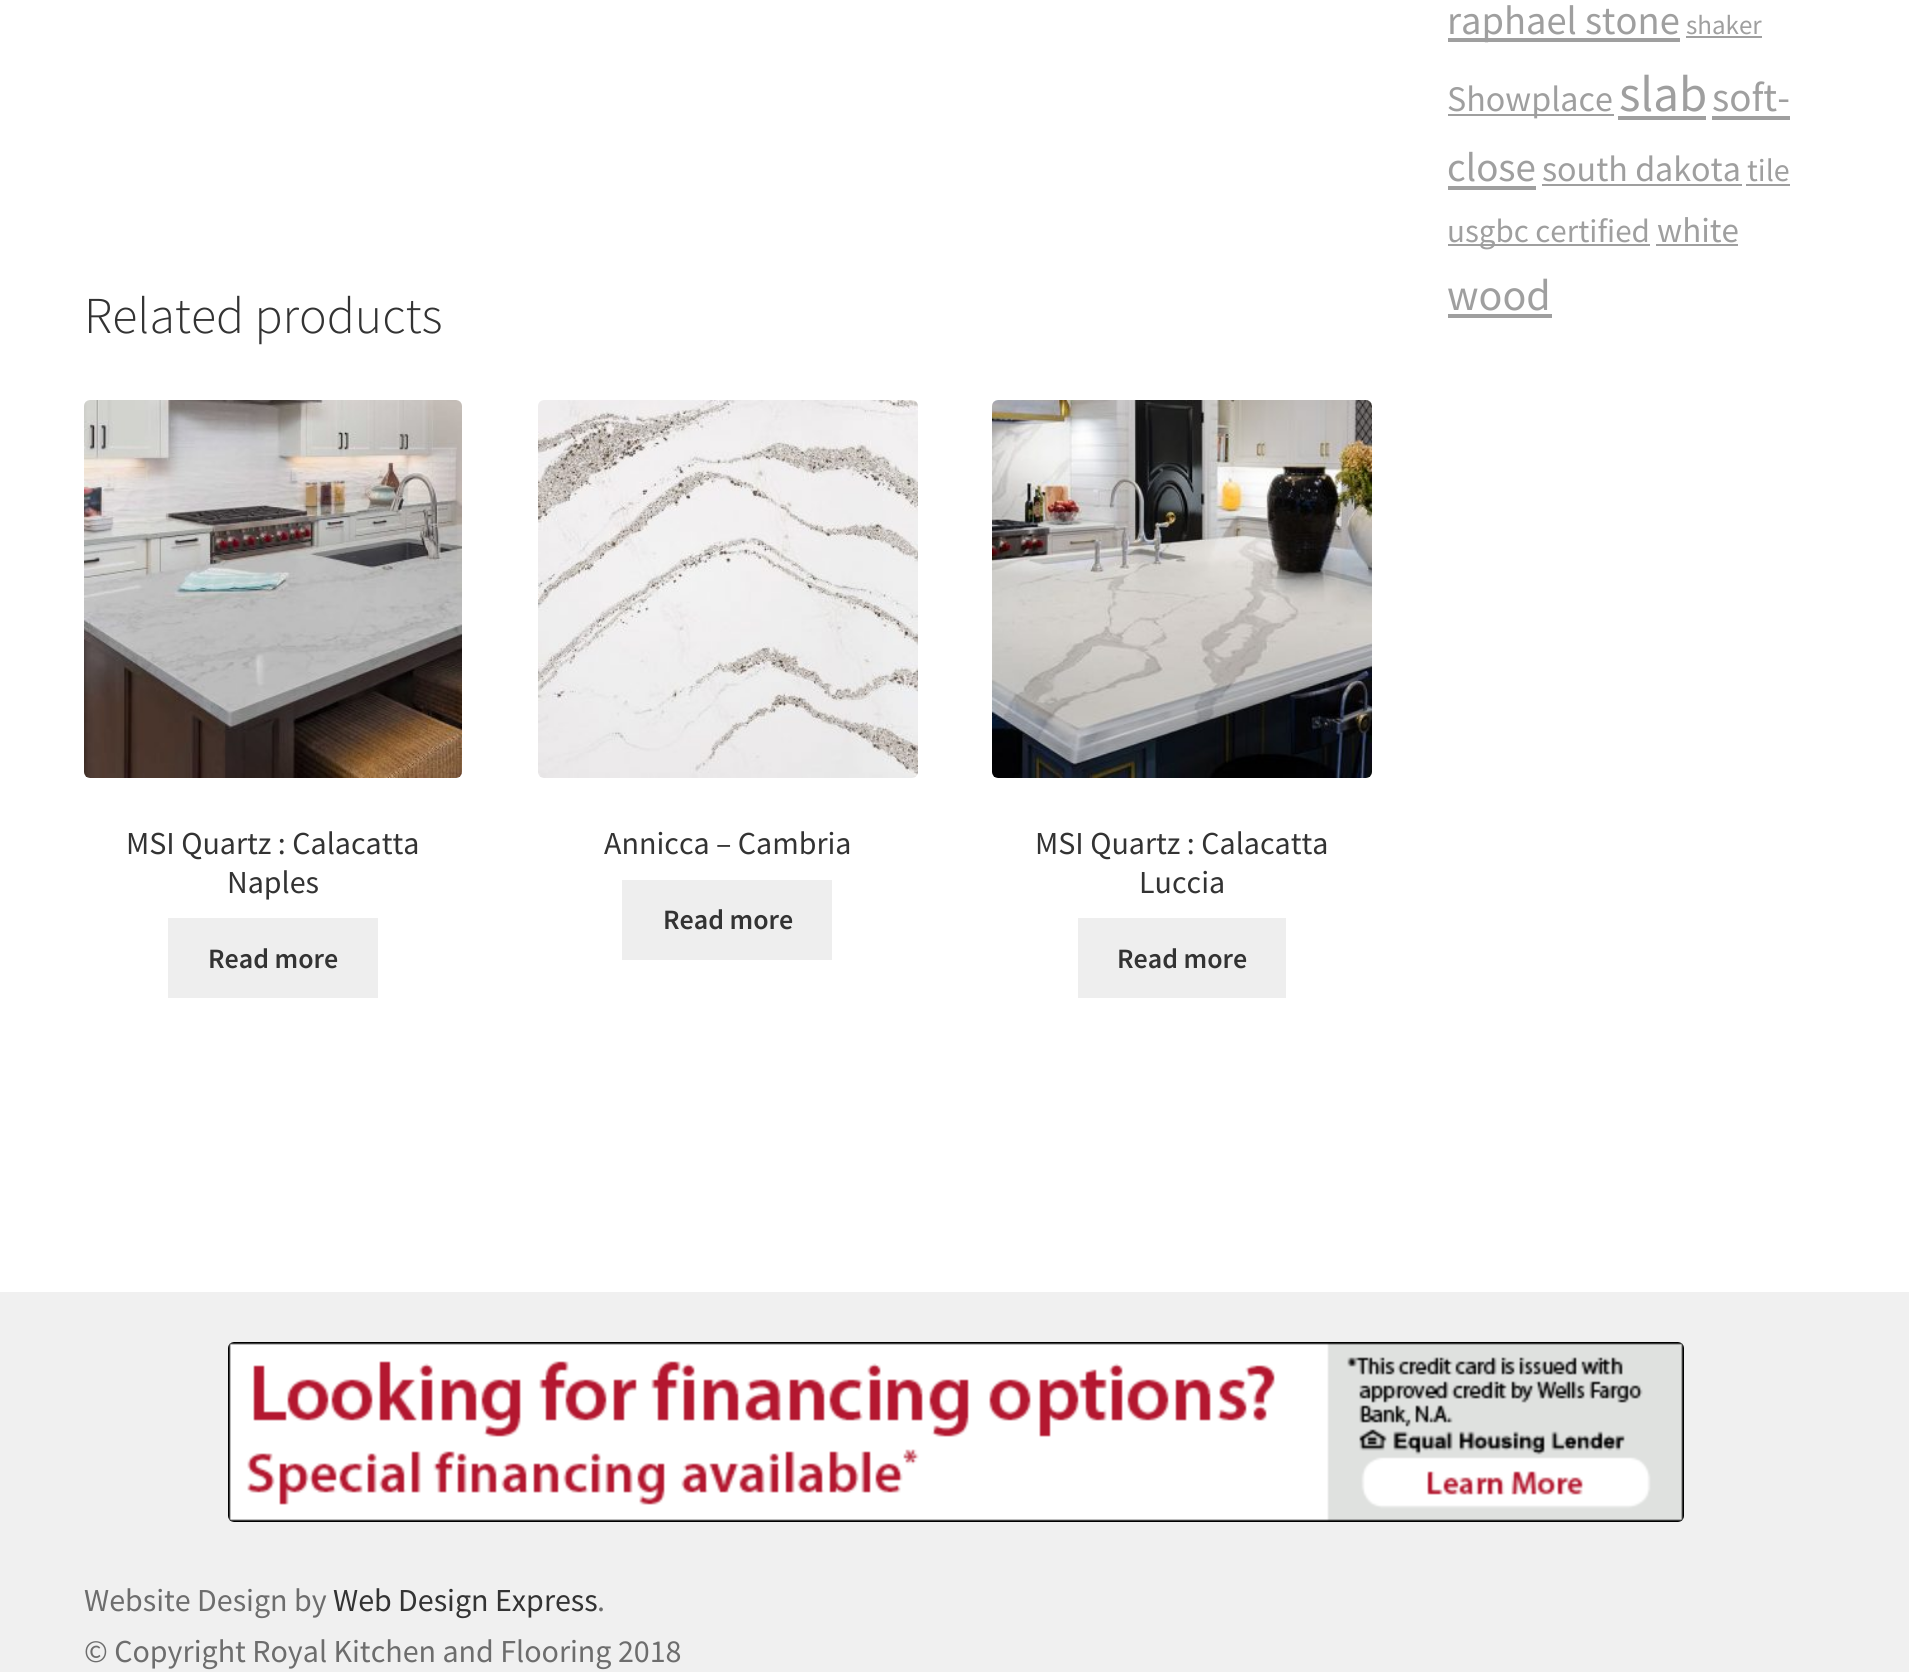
#include <cairo.h>
#include <math.h>
#include <stddef.h>


static void ink(cairo_t *ctx, unsigned color) {
    cairo_set_source_rgb(ctx, (color >> 16) / 255.0, (color >> 8 & 255) / 255.0, (color & 255) / 255.0);
}

static void paste(cairo_t *ctx, const char *path, double x, double y, double w, double h) {
    cairo_surface_t *image = cairo_image_surface_create_from_png(path);
    cairo_save(ctx);
    cairo_set_source_surface(ctx, image, x, y);
    cairo_rectangle(ctx, x, y, w, h);
    cairo_fill(ctx);
    cairo_restore(ctx);
    cairo_surface_destroy(image);
}

int main(void) {
    cairo_surface_t *surface = cairo_image_surface_create(CAIRO_FORMAT_RGB24, 1909, 1672);
    cairo_t *ctx = cairo_create(surface);
    cairo_font_options_t *options = cairo_font_options_create();
    cairo_font_options_set_hint_metrics(options, CAIRO_HINT_METRICS_OFF);
    cairo_font_options_set_hint_style(options, CAIRO_HINT_STYLE_NONE);
    cairo_set_font_options(ctx, options);
    cairo_set_miter_limit(ctx, 4);
    ink(ctx, 0xFFFFFF);
    cairo_paint(ctx);
    ink(ctx, 0x9F9F9F);
    cairo_rectangle(ctx, 1448, 38, 232, 4);
    cairo_fill(ctx);
    cairo_select_font_face(ctx, "Source Sans Pro", CAIRO_FONT_SLANT_NORMAL, CAIRO_FONT_WEIGHT_NORMAL);
    cairo_set_font_size(ctx, 40.5);
    cairo_move_to(ctx, 1447, 34);
    cairo_show_text(ctx, "raphael stone");
    cairo_set_font_size(ctx, 27);
    cairo_move_to(ctx, 1686, 34);
    cairo_show_text(ctx, "shaker");
    cairo_rectangle(ctx, 1686, 36, 76, 2);
    cairo_fill(ctx);
    cairo_rectangle(ctx, 1448, 114, 166, 2);
    cairo_fill(ctx);
    cairo_set_font_size(ctx, 36);
    cairo_move_to(ctx, 1447, 111);
    cairo_show_text(ctx, "Showplace");
    cairo_set_font_size(ctx, 51);
    cairo_move_to(ctx, 1619, 111);
    cairo_show_text(ctx, "slab");
    cairo_rectangle(ctx, 1618, 116, 88, 4);
    cairo_fill(ctx);
    cairo_set_font_size(ctx, 41);
    cairo_move_to(ctx, 1712, 111);
    cairo_show_text(ctx, "soft-");
    cairo_rectangle(ctx, 1712, 116, 78, 4);
    cairo_fill(ctx);
    cairo_move_to(ctx, 1447, 181);
    cairo_show_text(ctx, "close");
    cairo_rectangle(ctx, 1448, 186, 88, 4);
    cairo_fill(ctx);
    cairo_set_font_size(ctx, 36);
    cairo_move_to(ctx, 1542, 181);
    cairo_show_text(ctx, "south dakota");
    cairo_rectangle(ctx, 1542, 184, 200, 2);
    cairo_fill(ctx);
    cairo_set_font_size(ctx, 32);
    cairo_move_to(ctx, 1747, 181);
    cairo_show_text(ctx, "tile");
    cairo_rectangle(ctx, 1746, 184, 44, 2);
    cairo_fill(ctx);
    cairo_rectangle(ctx, 1448, 244, 202, 2);
    cairo_fill(ctx);
    cairo_set_font_size(ctx, 33);
    cairo_move_to(ctx, 1447, 242);
    cairo_show_text(ctx, "usgbc certified");
    cairo_set_font_size(ctx, 35);
    cairo_move_to(ctx, 1657, 242);
    cairo_show_text(ctx, "white");
    cairo_rectangle(ctx, 1656, 244, 82, 2);
    cairo_fill(ctx);
    cairo_set_font_size(ctx, 44);
    cairo_move_to(ctx, 1447, 310);
    cairo_show_text(ctx, "wood");
    cairo_rectangle(ctx, 1448, 314, 104, 4);
    cairo_fill(ctx);
    cairo_select_font_face(ctx, "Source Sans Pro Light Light", CAIRO_FONT_SLANT_NORMAL, CAIRO_FONT_WEIGHT_NORMAL);
    cairo_set_font_size(ctx, 51.75);
    ink(ctx, 0x333333);
    cairo_move_to(ctx, 84, 333);
    cairo_show_text(ctx, "Related products");
    paste(ctx, "media/1.png", 84, 400, 378, 378);
    cairo_select_font_face(ctx, "Source Sans Pro", CAIRO_FONT_SLANT_NORMAL, CAIRO_FONT_WEIGHT_NORMAL);
    cairo_set_font_size(ctx, 32);
    cairo_move_to(ctx, 126, 854);
    cairo_show_text(ctx, "MSI Quartz : Calacatta");
    cairo_move_to(ctx, 227, 893);
    cairo_show_text(ctx, "Naples");
    ink(ctx, 0xEEEEEE);
    cairo_rectangle(ctx, 168, 918, 210, 80);
    cairo_fill(ctx);
    cairo_select_font_face(ctx, "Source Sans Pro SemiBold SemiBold", CAIRO_FONT_SLANT_NORMAL, CAIRO_FONT_WEIGHT_NORMAL);
    cairo_set_font_size(ctx, 28);
    ink(ctx, 0x333333);
    cairo_move_to(ctx, 208, 968);
    cairo_show_text(ctx, "Read more");
    paste(ctx, "media/2.png", 538, 400, 380, 378);
    cairo_select_font_face(ctx, "Source Sans Pro", CAIRO_FONT_SLANT_NORMAL, CAIRO_FONT_WEIGHT_NORMAL);
    cairo_set_font_size(ctx, 32);
    cairo_move_to(ctx, 604, 854);
    cairo_show_text(ctx, "Annicca – Cambria");
    ink(ctx, 0xEEEEEE);
    cairo_rectangle(ctx, 622, 880, 210, 80);
    cairo_fill(ctx);
    cairo_select_font_face(ctx, "Source Sans Pro SemiBold SemiBold", CAIRO_FONT_SLANT_NORMAL, CAIRO_FONT_WEIGHT_NORMAL);
    cairo_set_font_size(ctx, 28);
    ink(ctx, 0x333333);
    cairo_move_to(ctx, 663, 929);
    cairo_show_text(ctx, "Read more");
    paste(ctx, "media/3.png", 992, 400, 380, 378);
    cairo_select_font_face(ctx, "Source Sans Pro", CAIRO_FONT_SLANT_NORMAL, CAIRO_FONT_WEIGHT_NORMAL);
    cairo_set_font_size(ctx, 32);
    cairo_move_to(ctx, 1035, 854);
    cairo_show_text(ctx, "MSI Quartz : Calacatta");
    cairo_move_to(ctx, 1139, 893);
    cairo_show_text(ctx, "Luccia");
    ink(ctx, 0xEEEEEE);
    cairo_rectangle(ctx, 1078, 918, 208, 80);
    cairo_fill(ctx);
    cairo_select_font_face(ctx, "Source Sans Pro SemiBold SemiBold", CAIRO_FONT_SLANT_NORMAL, CAIRO_FONT_WEIGHT_NORMAL);
    cairo_set_font_size(ctx, 28);
    ink(ctx, 0x333333);
    cairo_move_to(ctx, 1117, 968);
    cairo_show_text(ctx, "Read more");
    ink(ctx, 0xF0F0F0);
    cairo_rectangle(ctx, 0, 1292, 1909, 380);
    cairo_fill(ctx);
    paste(ctx, "media/4.png", 228, 1342, 1456, 180);
    cairo_select_font_face(ctx, "Source Sans Pro", CAIRO_FONT_SLANT_NORMAL, CAIRO_FONT_WEIGHT_NORMAL);
    cairo_set_font_size(ctx, 32);
    ink(ctx, 0x6D6D6D);
    cairo_move_to(ctx, 84, 1611);
    cairo_show_text(ctx, "Website Design by");
    ink(ctx, 0x333333);
    cairo_move_to(ctx, 333, 1611);
    cairo_show_text(ctx, "Web Design Express");
    ink(ctx, 0x6D6D6D);
    cairo_move_to(ctx, 597, 1611);
    cairo_show_text(ctx, ".");
    cairo_move_to(ctx, 84, 1662);
    cairo_show_text(ctx, "© Copyright Royal Kitchen and Flooring 2018");
    cairo_surface_write_to_png(surface, "image.png");
    cairo_font_options_destroy(options);
    cairo_destroy(ctx);
    cairo_surface_destroy(surface);
    return 0;
}
